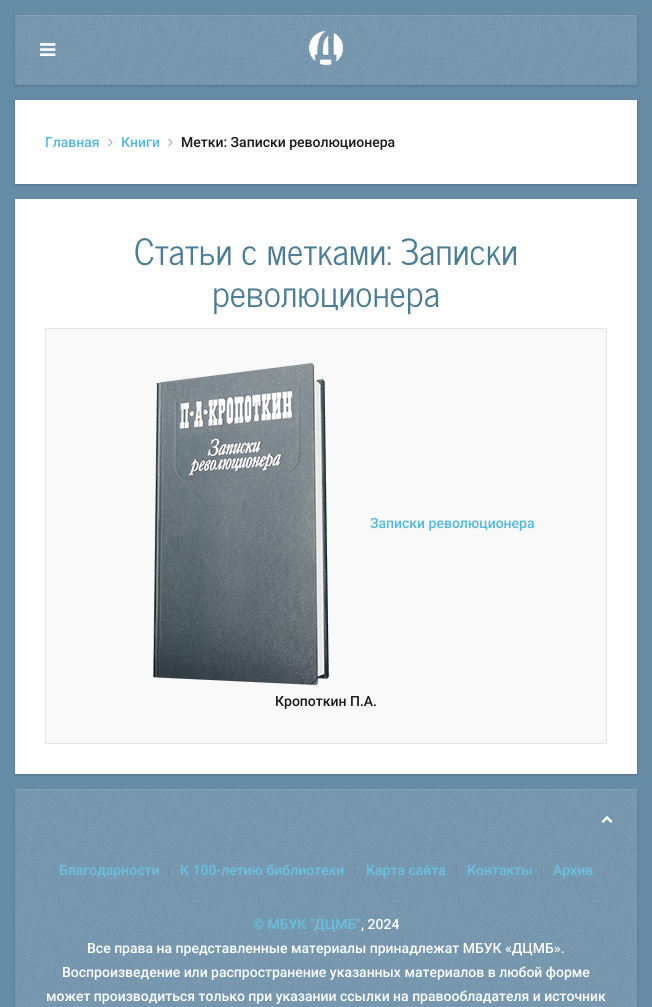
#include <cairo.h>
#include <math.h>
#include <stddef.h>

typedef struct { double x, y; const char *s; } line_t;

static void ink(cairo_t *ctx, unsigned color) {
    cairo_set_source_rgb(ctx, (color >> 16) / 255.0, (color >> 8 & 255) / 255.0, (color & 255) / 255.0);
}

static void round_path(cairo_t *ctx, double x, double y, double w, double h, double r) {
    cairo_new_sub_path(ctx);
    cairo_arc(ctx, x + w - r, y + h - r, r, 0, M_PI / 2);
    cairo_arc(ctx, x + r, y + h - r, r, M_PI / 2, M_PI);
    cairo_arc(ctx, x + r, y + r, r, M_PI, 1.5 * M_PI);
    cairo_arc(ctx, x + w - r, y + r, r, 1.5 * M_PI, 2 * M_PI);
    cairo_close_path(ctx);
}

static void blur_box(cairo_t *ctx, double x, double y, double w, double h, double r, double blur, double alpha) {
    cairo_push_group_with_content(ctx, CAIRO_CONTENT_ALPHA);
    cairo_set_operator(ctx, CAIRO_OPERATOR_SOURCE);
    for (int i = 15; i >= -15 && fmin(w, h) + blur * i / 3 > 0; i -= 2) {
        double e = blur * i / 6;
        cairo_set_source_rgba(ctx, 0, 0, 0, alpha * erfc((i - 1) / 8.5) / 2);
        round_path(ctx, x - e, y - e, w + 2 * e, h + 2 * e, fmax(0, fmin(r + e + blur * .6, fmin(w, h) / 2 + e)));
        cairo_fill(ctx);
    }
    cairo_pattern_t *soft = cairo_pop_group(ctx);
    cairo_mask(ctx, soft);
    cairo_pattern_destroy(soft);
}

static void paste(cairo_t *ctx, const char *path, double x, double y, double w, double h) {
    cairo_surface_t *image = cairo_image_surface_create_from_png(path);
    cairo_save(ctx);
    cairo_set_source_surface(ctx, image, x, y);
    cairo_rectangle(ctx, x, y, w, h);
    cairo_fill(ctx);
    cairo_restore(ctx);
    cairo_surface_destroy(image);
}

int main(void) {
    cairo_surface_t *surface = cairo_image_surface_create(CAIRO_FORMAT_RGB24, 652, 1007);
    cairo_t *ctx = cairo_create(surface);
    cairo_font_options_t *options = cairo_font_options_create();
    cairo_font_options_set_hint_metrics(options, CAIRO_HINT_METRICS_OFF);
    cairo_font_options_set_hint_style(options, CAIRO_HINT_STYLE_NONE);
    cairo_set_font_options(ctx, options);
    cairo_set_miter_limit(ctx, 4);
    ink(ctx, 0x678CA6);
    cairo_paint(ctx);
    ink(ctx, 0x1E3246);
    blur_box(ctx, 15, 16, 622, 70, 0, 1.5, 0.3);
    ink(ctx, 0x7698AF);
    cairo_rectangle(ctx, 15, 15, 622, 70);
    cairo_fill(ctx);
    paste(ctx, "media/1.png", 15, 15, 622, 70);
    cairo_set_source_rgba(ctx, 1, 1, 1, 0.12);
    cairo_rectangle(ctx, 15, 15, 622, 1);
    cairo_fill(ctx);
    paste(ctx, "media/2.png", 40, 43, 16, 13);
    paste(ctx, "media/3.png", 309, 31, 34, 34);
    ink(ctx, 0x1E3246);
    blur_box(ctx, 15, 101, 622, 84, 0, 1.5, 0.3);
    ink(ctx, 0xFFFFFF);
    cairo_rectangle(ctx, 15, 100, 622, 84);
    cairo_fill(ctx);
    cairo_select_font_face(ctx, "Roboto Medium", CAIRO_FONT_SLANT_NORMAL, CAIRO_FONT_WEIGHT_NORMAL);
    cairo_set_font_size(ctx, 14);
    ink(ctx, 0x52B8DF);
    cairo_move_to(ctx, 45, 147);
    cairo_show_text(ctx, "Главная");
    paste(ctx, "media/4.png", 108, 138, 5, 9);
    cairo_move_to(ctx, 121, 147);
    cairo_show_text(ctx, "Книги");
    paste(ctx, "media/4.png", 168, 138, 5, 9);
    ink(ctx, 0x18191C);
    cairo_move_to(ctx, 181, 147);
    cairo_show_text(ctx, "Метки: Записки революционера");
    ink(ctx, 0x1E3246);
    blur_box(ctx, 15, 200, 622, 575, 0, 1.5, 0.3);
    ink(ctx, 0xFFFFFF);
    cairo_rectangle(ctx, 15, 199, 622, 575);
    cairo_fill(ctx);
    cairo_select_font_face(ctx, "News Cycle", CAIRO_FONT_SLANT_NORMAL, CAIRO_FONT_WEIGHT_NORMAL);
    cairo_set_font_size(ctx, 36);
    ink(ctx, 0x497C95);
    cairo_move_to(ctx, 134, 265);
    cairo_show_text(ctx, "Статьи с метками: Записки");
    cairo_move_to(ctx, 212, 307);
    cairo_show_text(ctx, "революционера");
    ink(ctx, 0xF9F9F9);
    cairo_rectangle(ctx, 45.5, 328.5, 561, 415);
    cairo_fill_preserve(ctx);
    ink(ctx, 0xE5E5E5);
    cairo_set_line_width(ctx, 1);
    cairo_stroke(ctx);
    paste(ctx, "media/5.png", 153, 363, 176, 322);
    cairo_select_font_face(ctx, "Roboto Medium", CAIRO_FONT_SLANT_NORMAL, CAIRO_FONT_WEIGHT_NORMAL);
    cairo_set_font_size(ctx, 14);
    ink(ctx, 0x52B8DF);
    cairo_move_to(ctx, 370, 528);
    cairo_show_text(ctx, "Записки революционера");
    ink(ctx, 0x18191C);
    cairo_move_to(ctx, 275, 706);
    cairo_show_text(ctx, "Кропоткин П.А.");
    ink(ctx, 0x1E3246);
    blur_box(ctx, 15, 790, 622, 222, 0, 1.5, 0.3);
    ink(ctx, 0x7698AF);
    cairo_rectangle(ctx, 15, 789, 622, 218);
    cairo_fill(ctx);
    paste(ctx, "media/6.png", 15, 789, 622, 218);
    cairo_set_source_rgba(ctx, 1, 1, 1, 0.12);
    cairo_rectangle(ctx, 15, 789, 622, 1);
    cairo_fill(ctx);
    paste(ctx, "media/7.png", 601, 816, 12, 7);
    ink(ctx, 0x68C1E3);
    cairo_move_to(ctx, 59, 875);
    cairo_show_text(ctx, "Благодарности");
    cairo_set_source_rgba(ctx, 1, 1, 1, 0.1);
    cairo_rectangle(ctx, 170, 866, 1, 10);
    cairo_fill(ctx);
    cairo_set_source_rgba(ctx, 0, 0, 0, 0.1);
    cairo_rectangle(ctx, 169, 866, 1, 10);
    cairo_fill(ctx);
    ink(ctx, 0x68C1E3);
    cairo_move_to(ctx, 180, 875);
    cairo_show_text(ctx, "К 100-летию библиотеки");
    cairo_set_source_rgba(ctx, 1, 1, 1, 0.1);
    cairo_rectangle(ctx, 356, 866, 1, 10);
    cairo_fill(ctx);
    cairo_set_source_rgba(ctx, 0, 0, 0, 0.1);
    cairo_rectangle(ctx, 355, 866, 1, 10);
    cairo_fill(ctx);
    ink(ctx, 0x68C1E3);
    cairo_move_to(ctx, 366, 875);
    cairo_show_text(ctx, "Карта сайта");
    cairo_set_source_rgba(ctx, 1, 1, 1, 0.1);
    cairo_rectangle(ctx, 457, 866, 1, 10);
    cairo_fill(ctx);
    cairo_set_source_rgba(ctx, 0, 0, 0, 0.1);
    cairo_rectangle(ctx, 456, 866, 1, 10);
    cairo_fill(ctx);
    ink(ctx, 0x68C1E3);
    cairo_move_to(ctx, 467, 875);
    cairo_show_text(ctx, "Контакты");
    cairo_set_source_rgba(ctx, 1, 1, 1, 0.1);
    cairo_rectangle(ctx, 543, 866, 1, 10);
    cairo_fill(ctx);
    cairo_set_source_rgba(ctx, 0, 0, 0, 0.1);
    cairo_rectangle(ctx, 542, 866, 1, 10);
    cairo_fill(ctx);
    ink(ctx, 0x68C1E3);
    cairo_move_to(ctx, 553, 875);
    cairo_show_text(ctx, "Архив");
    cairo_move_to(ctx, 253, 929);
    cairo_show_text(ctx, "© МБУК \"ДЦМБ\"");
    ink(ctx, 0xFFFFFF);
    {
        static const line_t items[] = {
            {361, 929, ", 2024"},
            {87, 953, "Все права на представленные материалы принадлежат МБУК «ДЦМБ»."},
            {62, 977, "Воспроизведение или распространение указанных материалов в любой форме"},
            {46, 1001, "может производиться только при указании ссылки на правообладателя и источник"},
        };
        for (size_t i = 0; i < sizeof items / sizeof *items; i++) {
            cairo_move_to(ctx, items[i].x, items[i].y);
            cairo_show_text(ctx, items[i].s);
        }
    }
    cairo_surface_write_to_png(surface, "image.png");
    cairo_font_options_destroy(options);
    cairo_destroy(ctx);
    cairo_surface_destroy(surface);
    return 0;
}
